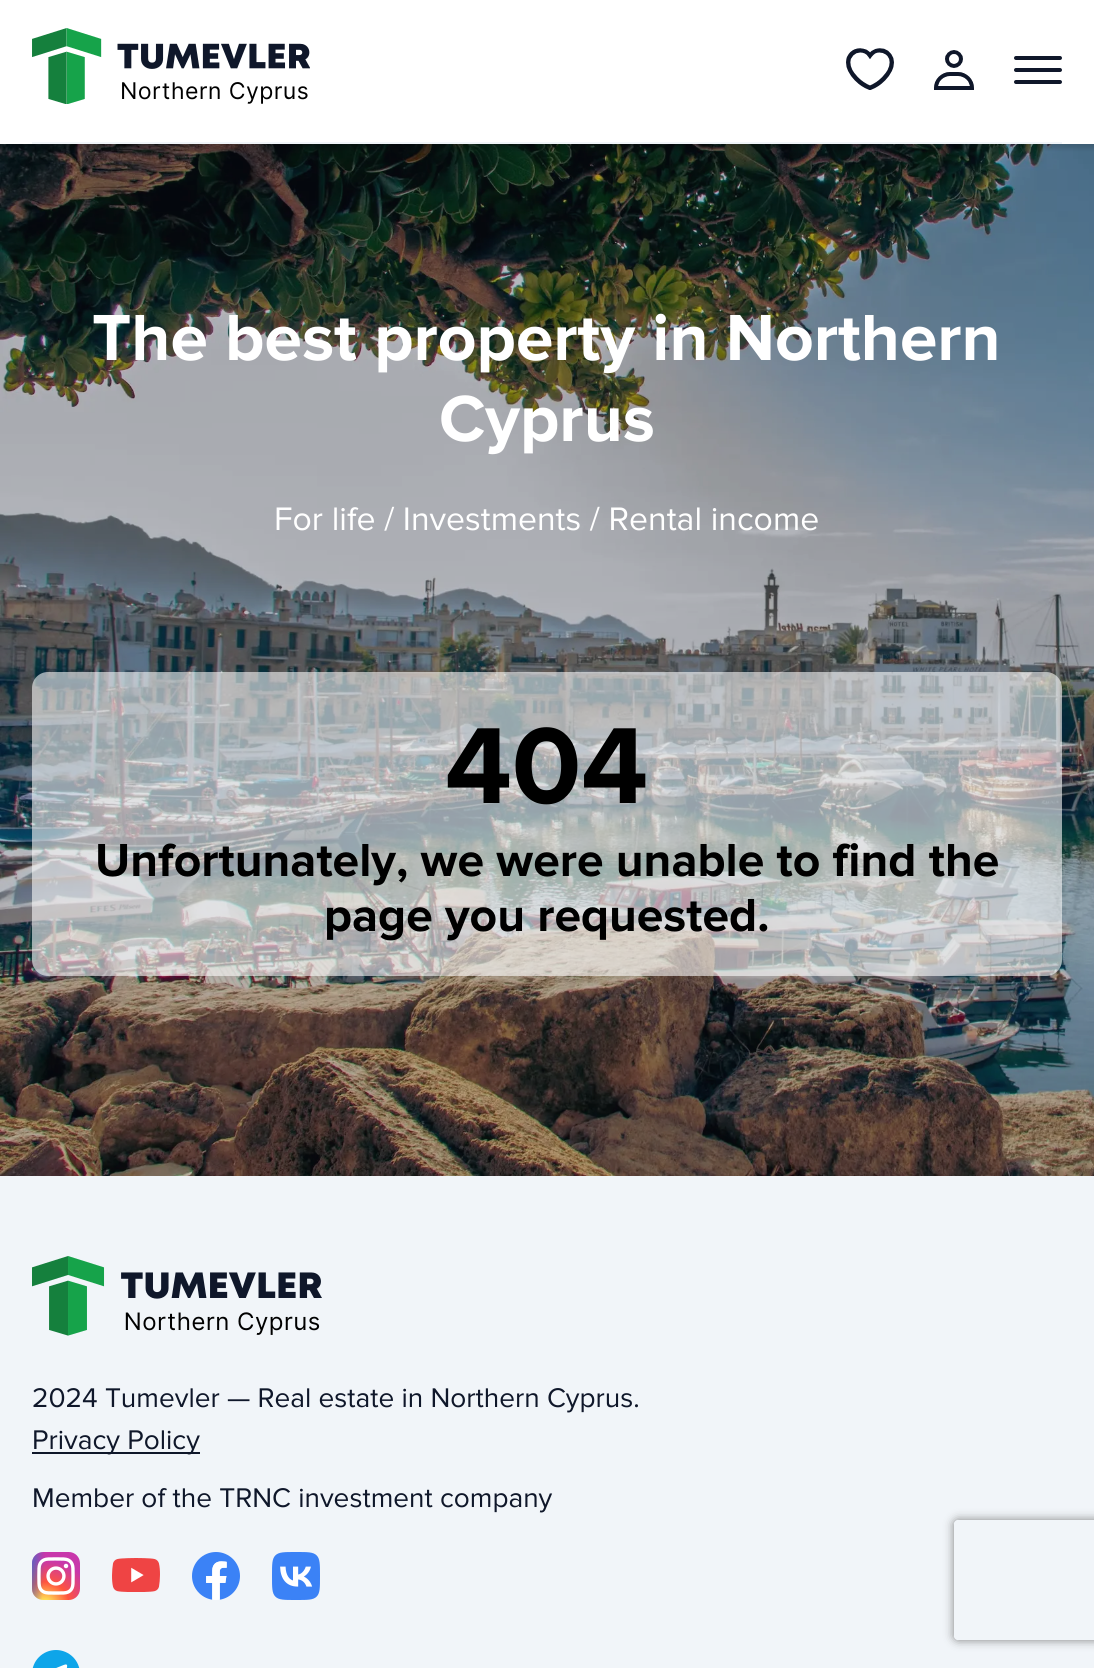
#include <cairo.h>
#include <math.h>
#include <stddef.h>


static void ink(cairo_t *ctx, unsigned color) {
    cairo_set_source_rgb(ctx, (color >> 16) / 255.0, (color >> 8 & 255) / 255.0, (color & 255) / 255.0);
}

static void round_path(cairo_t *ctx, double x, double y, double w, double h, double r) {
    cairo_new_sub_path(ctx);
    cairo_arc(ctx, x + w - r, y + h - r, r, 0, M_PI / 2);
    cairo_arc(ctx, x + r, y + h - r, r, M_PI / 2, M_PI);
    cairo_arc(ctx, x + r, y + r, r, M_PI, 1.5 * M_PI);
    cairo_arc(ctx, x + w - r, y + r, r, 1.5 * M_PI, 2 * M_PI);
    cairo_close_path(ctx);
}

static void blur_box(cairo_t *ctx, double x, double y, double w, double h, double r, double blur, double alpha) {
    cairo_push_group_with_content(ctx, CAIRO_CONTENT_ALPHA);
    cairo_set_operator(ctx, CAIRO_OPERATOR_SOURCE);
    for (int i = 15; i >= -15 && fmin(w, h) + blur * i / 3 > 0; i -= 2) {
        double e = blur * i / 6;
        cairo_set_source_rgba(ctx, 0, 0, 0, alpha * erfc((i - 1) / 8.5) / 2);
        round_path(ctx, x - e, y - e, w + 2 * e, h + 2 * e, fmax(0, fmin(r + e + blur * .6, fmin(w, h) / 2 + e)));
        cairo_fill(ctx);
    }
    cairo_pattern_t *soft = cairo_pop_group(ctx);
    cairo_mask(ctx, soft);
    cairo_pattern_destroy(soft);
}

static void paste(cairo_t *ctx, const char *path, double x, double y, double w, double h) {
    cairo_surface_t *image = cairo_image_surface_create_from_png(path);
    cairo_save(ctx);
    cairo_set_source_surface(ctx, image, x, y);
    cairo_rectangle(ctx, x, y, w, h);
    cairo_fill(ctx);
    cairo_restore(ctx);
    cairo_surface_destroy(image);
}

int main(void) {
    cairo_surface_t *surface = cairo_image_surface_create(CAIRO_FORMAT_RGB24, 1094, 1668);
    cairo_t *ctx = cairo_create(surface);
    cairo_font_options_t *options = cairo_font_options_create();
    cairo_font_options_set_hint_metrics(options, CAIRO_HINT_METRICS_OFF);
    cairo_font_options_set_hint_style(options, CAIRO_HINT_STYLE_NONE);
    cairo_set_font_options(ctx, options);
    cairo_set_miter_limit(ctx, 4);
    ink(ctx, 0xF1F5F9);
    cairo_paint(ctx);
    paste(ctx, "media/4.png", 0, 144, 1094, 1032);
    ink(ctx, 0x000000);
    blur_box(ctx, 4, 4, 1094, 144, 0, 2.5, 0.15);
    ink(ctx, 0xFFFFFF);
    cairo_rectangle(ctx, 0, 0, 1094, 144);
    cairo_fill(ctx);
    ink(ctx, 0xF1F5F9);
    cairo_rectangle(ctx, 32, 142, 1030, 2);
    cairo_fill(ctx);
    paste(ctx, "media/1.png", 32, 28, 278, 76);
    paste(ctx, "media/2.png", 846, 48, 48, 42);
    paste(ctx, "media/3.png", 934, 50, 40, 40);
    ink(ctx, 0x0F172A);
    round_path(ctx, 1014, 56, 48, 4, 2);
    cairo_fill(ctx);
    round_path(ctx, 1014, 68, 48, 4, 2);
    cairo_fill(ctx);
    round_path(ctx, 1014, 80, 48, 4, 2);
    cairo_fill(ctx);
    cairo_select_font_face(ctx, "Proxima Nova", CAIRO_FONT_SLANT_NORMAL, CAIRO_FONT_WEIGHT_BOLD);
    cairo_set_font_size(ctx, 67.5);
    ink(ctx, 0xFFFFFF);
    cairo_move_to(ctx, 92, 360);
    cairo_show_text(ctx, "The best property in Northern");
    cairo_move_to(ctx, 439, 441);
    cairo_show_text(ctx, "Cyprus");
    cairo_select_font_face(ctx, "Proxima Nova", CAIRO_FONT_SLANT_NORMAL, CAIRO_FONT_WEIGHT_NORMAL);
    cairo_set_font_size(ctx, 33.75);
    cairo_move_to(ctx, 274, 530);
    cairo_show_text(ctx, "For life / Investments / Rental income");
    cairo_set_source_rgba(ctx, 1, 1, 1, 0.58);
    round_path(ctx, 32, 672, 1030, 304, 16);
    cairo_fill(ctx);
    cairo_select_font_face(ctx, "Proxima Nova", CAIRO_FONT_SLANT_NORMAL, CAIRO_FONT_WEIGHT_BOLD);
    cairo_set_font_size(ctx, 112);
    ink(ctx, 0x000000);
    cairo_move_to(ctx, 445, 803);
    cairo_show_text(ctx, "404");
    cairo_set_font_size(ctx, 48);
    cairo_move_to(ctx, 95, 876);
    cairo_show_text(ctx, "Unfortunately, we were unable to find the");
    cairo_move_to(ctx, 324, 931);
    cairo_show_text(ctx, "page you requested.");
    paste(ctx, "media/5.png", 32, 1256, 290, 80);
    cairo_select_font_face(ctx, "Proxima Nova", CAIRO_FONT_SLANT_NORMAL, CAIRO_FONT_WEIGHT_NORMAL);
    cairo_set_font_size(ctx, 28);
    ink(ctx, 0x0F172A);
    cairo_move_to(ctx, 32, 1407);
    cairo_show_text(ctx, "2024 Tumevler — Real estate in Northern Cyprus.");
    cairo_rectangle(ctx, 32, 1452, 168, 2);
    cairo_fill(ctx);
    cairo_move_to(ctx, 32, 1449);
    cairo_show_text(ctx, "Privacy Policy");
    cairo_move_to(ctx, 32, 1507);
    cairo_show_text(ctx, "Member of the TRNC investment company");
    paste(ctx, "media/6.png", 32, 1552, 48, 48);
    paste(ctx, "media/7.png", 112, 1558, 48, 34);
    paste(ctx, "media/8.png", 192, 1552, 48, 48);
    paste(ctx, "media/9.png", 272, 1552, 48, 48);
    paste(ctx, "media/10.png", 32, 1650, 48, 18);
    cairo_save(ctx);
    cairo_set_fill_rule(ctx, CAIRO_FILL_RULE_EVEN_ODD);
    cairo_new_path(ctx);
    cairo_move_to(ctx, 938, 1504);
    cairo_line_to(ctx, 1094, 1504);
    cairo_line_to(ctx, 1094, 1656);
    cairo_line_to(ctx, 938, 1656);
    cairo_close_path(ctx);
    cairo_move_to(ctx, 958, 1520);
    cairo_line_to(ctx, 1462, 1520);
    cairo_curve_to(ctx, 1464, 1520, 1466, 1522, 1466, 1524);
    cairo_line_to(ctx, 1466, 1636);
    cairo_curve_to(ctx, 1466, 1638, 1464, 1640, 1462, 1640);
    cairo_line_to(ctx, 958, 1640);
    cairo_curve_to(ctx, 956, 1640, 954, 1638, 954, 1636);
    cairo_line_to(ctx, 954, 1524);
    cairo_curve_to(ctx, 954, 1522, 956, 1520, 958, 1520);
    cairo_close_path(ctx);
    cairo_clip(ctx);
    ink(ctx, 0x808080);
    blur_box(ctx, 954, 1520, 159, 120, 4, 5, 1);
    cairo_restore(ctx);
    cairo_surface_write_to_png(surface, "image.png");
    cairo_font_options_destroy(options);
    cairo_destroy(ctx);
    cairo_surface_destroy(surface);
    return 0;
}
